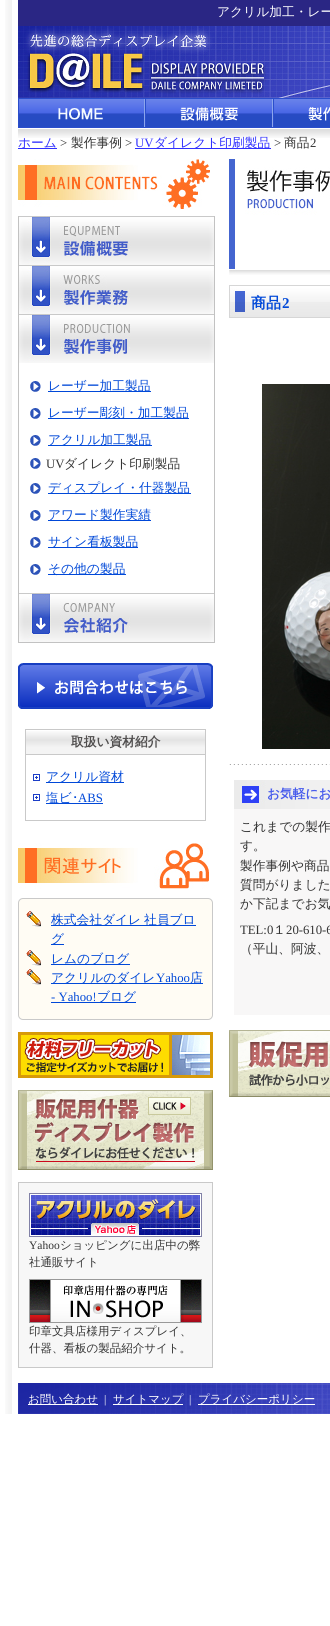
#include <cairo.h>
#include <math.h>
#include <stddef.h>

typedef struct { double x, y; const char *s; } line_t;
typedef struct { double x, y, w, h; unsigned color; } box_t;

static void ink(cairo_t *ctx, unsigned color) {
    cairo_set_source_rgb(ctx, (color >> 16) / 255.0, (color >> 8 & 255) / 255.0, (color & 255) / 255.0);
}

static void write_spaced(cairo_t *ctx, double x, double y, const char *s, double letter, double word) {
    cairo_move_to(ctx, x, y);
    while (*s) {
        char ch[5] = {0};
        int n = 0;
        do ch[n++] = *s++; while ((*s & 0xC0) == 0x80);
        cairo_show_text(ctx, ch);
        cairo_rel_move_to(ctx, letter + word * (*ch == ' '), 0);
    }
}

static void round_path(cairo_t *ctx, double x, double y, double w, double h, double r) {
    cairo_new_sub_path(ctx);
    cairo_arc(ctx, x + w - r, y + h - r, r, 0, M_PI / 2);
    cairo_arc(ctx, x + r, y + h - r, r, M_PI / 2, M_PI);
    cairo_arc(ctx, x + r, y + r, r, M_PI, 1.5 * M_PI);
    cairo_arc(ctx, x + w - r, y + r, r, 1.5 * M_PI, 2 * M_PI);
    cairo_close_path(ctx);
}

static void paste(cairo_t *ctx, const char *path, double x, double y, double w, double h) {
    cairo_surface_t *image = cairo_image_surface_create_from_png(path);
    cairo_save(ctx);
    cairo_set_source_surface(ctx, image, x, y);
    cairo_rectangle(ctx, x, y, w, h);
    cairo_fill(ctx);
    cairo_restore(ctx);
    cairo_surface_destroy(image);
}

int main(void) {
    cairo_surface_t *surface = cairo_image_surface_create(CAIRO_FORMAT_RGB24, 330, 1626);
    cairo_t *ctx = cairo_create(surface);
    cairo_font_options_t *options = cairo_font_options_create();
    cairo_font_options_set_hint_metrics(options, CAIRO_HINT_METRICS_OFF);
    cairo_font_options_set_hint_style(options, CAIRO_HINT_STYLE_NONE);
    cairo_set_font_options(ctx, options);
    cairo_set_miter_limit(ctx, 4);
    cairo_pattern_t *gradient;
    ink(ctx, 0xFFFFFF);
    cairo_paint(ctx);
    paste(ctx, "media/1.png", 5, 0, 7, 1414);
    ink(ctx, 0x2A2684);
    cairo_rectangle(ctx, 18, 0, 312, 26);
    cairo_fill(ctx);
    cairo_select_font_face(ctx, "WenQuanYi Zen Hei Medium", CAIRO_FONT_SLANT_NORMAL, CAIRO_FONT_WEIGHT_NORMAL);
    cairo_set_font_size(ctx, 12.75);
    ink(ctx, 0xFFFFFF);
    cairo_move_to(ctx, 217, 16);
    cairo_show_text(ctx, "アクリル加工・レー");
    paste(ctx, "media/2.png", 18, 26, 312, 72);
    paste(ctx, "media/3.png", 18, 98, 128, 30);
    paste(ctx, "media/4.png", 146, 98, 128, 30);
    paste(ctx, "media/5.png", 274, 98, 56, 30);
    paste(ctx, "media/6.png", 18, 129, 312, 9);
    ink(ctx, 0x2F2FFF);
    cairo_rectangle(ctx, 18, 148, 39, 1);
    cairo_fill(ctx);
    cairo_move_to(ctx, 18, 147);
    cairo_show_text(ctx, "ホーム");
    cairo_select_font_face(ctx, "Liberation Serif", CAIRO_FONT_SLANT_NORMAL, CAIRO_FONT_WEIGHT_NORMAL);
    ink(ctx, 0x333333);
    cairo_move_to(ctx, 60, 147);
    cairo_show_text(ctx, ">");
    cairo_select_font_face(ctx, "WenQuanYi Zen Hei Medium", CAIRO_FONT_SLANT_NORMAL, CAIRO_FONT_WEIGHT_NORMAL);
    cairo_move_to(ctx, 71, 147);
    cairo_show_text(ctx, "製作事例");
    cairo_select_font_face(ctx, "Liberation Serif", CAIRO_FONT_SLANT_NORMAL, CAIRO_FONT_WEIGHT_NORMAL);
    cairo_move_to(ctx, 125, 147);
    cairo_show_text(ctx, ">");
    ink(ctx, 0x2F2FFF);
    cairo_move_to(ctx, 135, 147);
    cairo_show_text(ctx, "UV");
    cairo_rectangle(ctx, 135, 148, 136, 1);
    cairo_fill(ctx);
    cairo_select_font_face(ctx, "WenQuanYi Zen Hei Medium", CAIRO_FONT_SLANT_NORMAL, CAIRO_FONT_WEIGHT_NORMAL);
    cairo_move_to(ctx, 154, 147);
    cairo_show_text(ctx, "ダイレクト印刷製品");
    cairo_select_font_face(ctx, "Liberation Serif", CAIRO_FONT_SLANT_NORMAL, CAIRO_FONT_WEIGHT_NORMAL);
    ink(ctx, 0x333333);
    cairo_move_to(ctx, 274, 147);
    cairo_show_text(ctx, ">");
    cairo_select_font_face(ctx, "WenQuanYi Zen Hei Medium", CAIRO_FONT_SLANT_NORMAL, CAIRO_FONT_WEIGHT_NORMAL);
    cairo_move_to(ctx, 284, 147);
    cairo_show_text(ctx, "商品");
    cairo_select_font_face(ctx, "Liberation Serif", CAIRO_FONT_SLANT_NORMAL, CAIRO_FONT_WEIGHT_NORMAL);
    cairo_move_to(ctx, 310, 147);
    cairo_show_text(ctx, "2");
    paste(ctx, "media/7.png", 18, 159, 192, 50);
    {
        static const box_t items[] = {
            {214, 216, 1, 427, 0xC2C2C2},
            {18, 642, 197, 1, 0xC2C2C2},
            {18, 216, 1, 427, 0xC2C2C2},
        };
        for (size_t i = 0; i < sizeof items / sizeof *items; i++) {
            ink(ctx, items[i].color);
            cairo_rectangle(ctx, items[i].x, items[i].y, items[i].w, items[i].h);
            cairo_fill(ctx);
        }
    }
    paste(ctx, "media/8.png", 19, 216, 195, 49);
    paste(ctx, "media/9.png", 19, 265, 195, 49);
    paste(ctx, "media/10.png", 19, 314, 195, 49);
    paste(ctx, "media/11.png", 30, 381, 11, 11);
    ink(ctx, 0x0048D8);
    cairo_rectangle(ctx, 48, 391, 103, 1);
    cairo_fill(ctx);
    cairo_select_font_face(ctx, "WenQuanYi Zen Hei Medium", CAIRO_FONT_SLANT_NORMAL, CAIRO_FONT_WEIGHT_NORMAL);
    cairo_move_to(ctx, 48, 390);
    cairo_show_text(ctx, "レーザー加工製品");
    paste(ctx, "media/11.png", 30, 408, 11, 11);
    cairo_rectangle(ctx, 48, 418, 141, 1);
    cairo_fill(ctx);
    cairo_move_to(ctx, 48, 417);
    cairo_show_text(ctx, "レーザー彫刻・加工製品");
    paste(ctx, "media/11.png", 30, 435, 11, 11);
    cairo_rectangle(ctx, 48, 445, 104, 1);
    cairo_fill(ctx);
    cairo_move_to(ctx, 48, 444);
    cairo_show_text(ctx, "アクリル加工製品");
    paste(ctx, "media/11.png", 30, 458, 11, 11);
    cairo_select_font_face(ctx, "Liberation Serif", CAIRO_FONT_SLANT_NORMAL, CAIRO_FONT_WEIGHT_NORMAL);
    ink(ctx, 0x333333);
    cairo_move_to(ctx, 46, 468);
    cairo_show_text(ctx, "UV");
    cairo_select_font_face(ctx, "WenQuanYi Zen Hei Medium", CAIRO_FONT_SLANT_NORMAL, CAIRO_FONT_WEIGHT_NORMAL);
    cairo_move_to(ctx, 64, 468);
    cairo_show_text(ctx, "ダイレクト印刷製品");
    paste(ctx, "media/11.png", 30, 483, 11, 11);
    ink(ctx, 0x0048D8);
    cairo_rectangle(ctx, 48, 493, 143, 1);
    cairo_fill(ctx);
    cairo_move_to(ctx, 48, 492);
    cairo_show_text(ctx, "ディスプレイ・什器製品");
    paste(ctx, "media/11.png", 30, 510, 11, 11);
    cairo_rectangle(ctx, 48, 520, 103, 1);
    cairo_fill(ctx);
    cairo_move_to(ctx, 48, 519);
    cairo_show_text(ctx, "アワード製作実績");
    paste(ctx, "media/11.png", 30, 537, 11, 11);
    cairo_rectangle(ctx, 48, 547, 90, 1);
    cairo_fill(ctx);
    cairo_move_to(ctx, 48, 546);
    cairo_show_text(ctx, "サイン看板製品");
    paste(ctx, "media/11.png", 30, 564, 11, 11);
    cairo_rectangle(ctx, 48, 574, 78, 1);
    cairo_fill(ctx);
    cairo_move_to(ctx, 48, 573);
    cairo_show_text(ctx, "その他の製品");
    paste(ctx, "media/12.png", 19, 593, 195, 49);
    paste(ctx, "media/13.png", 18, 663, 195, 46);
    gradient = cairo_pattern_create_linear(26, 754, 26, 730);
    cairo_pattern_add_color_stop_rgba(gradient, 0.27, 0.957, 0.957, 0.957, 1);
    cairo_pattern_add_color_stop_rgba(gradient, 0.59, 0.89, 0.89, 0.89, 1);
    cairo_pattern_add_color_stop_rgba(gradient, 1, 0.996, 0.996, 0.996, 1);
    cairo_set_source(ctx, gradient);
    cairo_pattern_destroy(gradient);
    cairo_rectangle(ctx, 26, 731, 179, 23);
    cairo_fill(ctx);
    {
        static const box_t items[] = {
            {25, 729, 181, 1, 0xC9C9C9},
            {205, 729, 1, 25, 0xC9C9C9},
            {25, 729, 1, 25, 0xC9C9C9},
        };
        for (size_t i = 0; i < sizeof items / sizeof *items; i++) {
            ink(ctx, items[i].color);
            cairo_rectangle(ctx, items[i].x, items[i].y, items[i].w, items[i].h);
            cairo_fill(ctx);
        }
    }
    cairo_select_font_face(ctx, "WenQuanYi Zen Hei", CAIRO_FONT_SLANT_NORMAL, CAIRO_FONT_WEIGHT_BOLD);
    ink(ctx, 0x514F4F);
    cairo_move_to(ctx, 71, 746);
    cairo_show_text(ctx, "取扱い資材紹介");
    cairo_rectangle(ctx, 25.5, 754.5, 180, 66);
    ink(ctx, 0xC9C9C9);
    cairo_set_line_width(ctx, 1);
    cairo_stroke(ctx);
    paste(ctx, "media/14.png", 33, 774, 7, 7);
    ink(ctx, 0x0048D8);
    cairo_rectangle(ctx, 46, 782, 78, 1);
    cairo_fill(ctx);
    cairo_select_font_face(ctx, "WenQuanYi Zen Hei Medium", CAIRO_FONT_SLANT_NORMAL, CAIRO_FONT_WEIGHT_NORMAL);
    cairo_move_to(ctx, 46, 781);
    cairo_show_text(ctx, "アクリル資材");
    paste(ctx, "media/14.png", 33, 794, 7, 7);
    cairo_rectangle(ctx, 46, 803, 57, 1);
    cairo_fill(ctx);
    cairo_move_to(ctx, 46, 802);
    cairo_show_text(ctx, "塩ビ");
    cairo_select_font_face(ctx, "IPAPGothic", CAIRO_FONT_SLANT_NORMAL, CAIRO_FONT_WEIGHT_NORMAL);
    cairo_move_to(ctx, 72, 802);
    cairo_show_text(ctx, "･");
    cairo_select_font_face(ctx, "Liberation Serif", CAIRO_FONT_SLANT_NORMAL, CAIRO_FONT_WEIGHT_NORMAL);
    cairo_move_to(ctx, 78, 802);
    cairo_show_text(ctx, "ABS");
    paste(ctx, "media/15.png", 18, 843, 191, 46);
    ink(ctx, 0xFFFCF4);
    round_path(ctx, 18.5, 898.5, 194, 121, 4.5);
    cairo_fill_preserve(ctx);
    ink(ctx, 0xC9C9C9);
    cairo_stroke(ctx);
    paste(ctx, "media/16.png", 26, 911, 15, 16);
    ink(ctx, 0x0048D8);
    cairo_rectangle(ctx, 51, 925, 145, 1);
    cairo_fill(ctx);
    cairo_select_font_face(ctx, "WenQuanYi Zen Hei Medium", CAIRO_FONT_SLANT_NORMAL, CAIRO_FONT_WEIGHT_NORMAL);
    write_spaced(ctx, 51, 924, "株式会社ダイレ 社員ブロ", 0, -1);
    cairo_rectangle(ctx, 51, 944, 13, 1);
    cairo_fill(ctx);
    cairo_move_to(ctx, 51, 943);
    cairo_show_text(ctx, "グ");
    paste(ctx, "media/16.png", 26, 950, 15, 16);
    cairo_rectangle(ctx, 51, 964, 79, 1);
    cairo_fill(ctx);
    cairo_move_to(ctx, 51, 963);
    cairo_show_text(ctx, "レムのブログ");
    paste(ctx, "media/16.png", 26, 969, 15, 16);
    cairo_rectangle(ctx, 51, 983, 152, 1);
    cairo_fill(ctx);
    cairo_move_to(ctx, 51, 982);
    cairo_show_text(ctx, "アクリルのダイレ");
    cairo_select_font_face(ctx, "Liberation Serif", CAIRO_FONT_SLANT_NORMAL, CAIRO_FONT_WEIGHT_NORMAL);
    cairo_move_to(ctx, 156, 982);
    cairo_show_text(ctx, "Yahoo");
    cairo_select_font_face(ctx, "WenQuanYi Zen Hei Medium", CAIRO_FONT_SLANT_NORMAL, CAIRO_FONT_WEIGHT_NORMAL);
    cairo_move_to(ctx, 190, 982);
    cairo_show_text(ctx, "店");
    cairo_select_font_face(ctx, "Liberation Serif", CAIRO_FONT_SLANT_NORMAL, CAIRO_FONT_WEIGHT_NORMAL);
    cairo_move_to(ctx, 51, 1001);
    cairo_show_text(ctx, "- Yahoo!");
    cairo_rectangle(ctx, 51, 1002, 85, 1);
    cairo_fill(ctx);
    cairo_select_font_face(ctx, "WenQuanYi Zen Hei Medium", CAIRO_FONT_SLANT_NORMAL, CAIRO_FONT_WEIGHT_NORMAL);
    cairo_move_to(ctx, 97, 1001);
    cairo_show_text(ctx, "ブログ");
    paste(ctx, "media/17.png", 18, 1032, 195, 46);
    paste(ctx, "media/18.png", 18, 1090, 195, 80);
    ink(ctx, 0xF7F7F7);
    cairo_rectangle(ctx, 18.5, 1182.5, 194, 185);
    cairo_fill_preserve(ctx);
    ink(ctx, 0xC9C9C9);
    cairo_stroke(ctx);
    paste(ctx, "media/19.png", 29, 1193, 173, 44);
    cairo_select_font_face(ctx, "Liberation Serif", CAIRO_FONT_SLANT_NORMAL, CAIRO_FONT_WEIGHT_NORMAL);
    cairo_set_font_size(ctx, 11.5);
    ink(ctx, 0x333333);
    cairo_move_to(ctx, 29, 1249);
    cairo_show_text(ctx, "Yahoo");
    cairo_select_font_face(ctx, "WenQuanYi Zen Hei Medium", CAIRO_FONT_SLANT_NORMAL, CAIRO_FONT_WEIGHT_NORMAL);
    cairo_move_to(ctx, 60, 1249);
    cairo_show_text(ctx, "ショッピングに出店中の弊");
    cairo_move_to(ctx, 29, 1266);
    cairo_show_text(ctx, "社通販サイト");
    paste(ctx, "media/20.png", 29, 1279, 173, 44);
    cairo_move_to(ctx, 29, 1335);
    cairo_show_text(ctx, "印章文具店様用ディスプレイ、");
    cairo_move_to(ctx, 29, 1352);
    cairo_show_text(ctx, "什器、看板の製品紹介サイト。");
    paste(ctx, "media/21.png", 229, 159, 101, 116);
    paste(ctx, "media/22.png", 229, 285, 101, 33);
    cairo_select_font_face(ctx, "WenQuanYi Zen Hei", CAIRO_FONT_SLANT_NORMAL, CAIRO_FONT_WEIGHT_BOLD);
    cairo_set_font_size(ctx, 15);
    ink(ctx, 0x0048D8);
    cairo_move_to(ctx, 251, 308);
    cairo_show_text(ctx, "商品");
    cairo_select_font_face(ctx, "Liberation Serif", CAIRO_FONT_SLANT_NORMAL, CAIRO_FONT_WEIGHT_BOLD);
    cairo_move_to(ctx, 282, 308);
    cairo_show_text(ctx, "2");
    paste(ctx, "media/23.png", 262, 384, 68, 365);
    paste(ctx, "media/24.png", 229, 764, 101, 1);
    ink(ctx, 0xF8F7F7);
    cairo_rectangle(ctx, 234, 809, 96, 206);
    cairo_fill(ctx);
    paste(ctx, "media/25.png", 234, 780, 96, 29);
    cairo_select_font_face(ctx, "WenQuanYi Zen Hei", CAIRO_FONT_SLANT_NORMAL, CAIRO_FONT_WEIGHT_BOLD);
    cairo_set_font_size(ctx, 12.75);
    ink(ctx, 0x485CEC);
    cairo_move_to(ctx, 267, 798);
    cairo_show_text(ctx, "お気軽にお");
    cairo_select_font_face(ctx, "WenQuanYi Zen Hei Medium", CAIRO_FONT_SLANT_NORMAL, CAIRO_FONT_WEIGHT_NORMAL);
    ink(ctx, 0x333333);
    {
        static const line_t items[] = {
            {240, 831, "これまでの製作"},
            {240, 850, "す。"},
            {240, 870, "製作事例や商品"},
            {240, 889, "質問がりました"},
            {240, 908, "か下記までお気"},
        };
        for (size_t i = 0; i < sizeof items / sizeof *items; i++) {
            cairo_move_to(ctx, items[i].x, items[i].y);
            cairo_show_text(ctx, items[i].s);
        }
    }
    cairo_select_font_face(ctx, "Liberation Serif", CAIRO_FONT_SLANT_NORMAL, CAIRO_FONT_WEIGHT_NORMAL);
    cairo_move_to(ctx, 240, 934);
    cairo_show_text(ctx, "TEL:0");
    cairo_select_font_face(ctx, "WenQuanYi Zen Hei Medium", CAIRO_FONT_SLANT_NORMAL, CAIRO_FONT_WEIGHT_NORMAL);
    cairo_move_to(ctx, 273, 934);
    cairo_show_text(ctx, "１");
    cairo_select_font_face(ctx, "Liberation Serif", CAIRO_FONT_SLANT_NORMAL, CAIRO_FONT_WEIGHT_NORMAL);
    cairo_move_to(ctx, 286, 934);
    cairo_show_text(ctx, "20-610-6");
    cairo_select_font_face(ctx, "WenQuanYi Zen Hei Medium", CAIRO_FONT_SLANT_NORMAL, CAIRO_FONT_WEIGHT_NORMAL);
    cairo_move_to(ctx, 240, 953);
    cairo_show_text(ctx, "（平山、阿波、");
    paste(ctx, "media/26.png", 229, 1030, 101, 67);
    paste(ctx, "media/27.png", 18, 1383, 312, 31);
    ink(ctx, 0xFFFFFF);
    cairo_rectangle(ctx, 28, 1404, 70, 1);
    cairo_fill(ctx);
    cairo_set_font_size(ctx, 11.5);
    cairo_move_to(ctx, 28, 1403);
    cairo_show_text(ctx, "お問い合わせ");
    cairo_select_font_face(ctx, "Liberation Serif", CAIRO_FONT_SLANT_NORMAL, CAIRO_FONT_WEIGHT_NORMAL);
    cairo_move_to(ctx, 104, 1403);
    cairo_show_text(ctx, "|");
    cairo_rectangle(ctx, 113, 1404, 70, 1);
    cairo_fill(ctx);
    cairo_select_font_face(ctx, "WenQuanYi Zen Hei Medium", CAIRO_FONT_SLANT_NORMAL, CAIRO_FONT_WEIGHT_NORMAL);
    cairo_move_to(ctx, 113, 1403);
    cairo_show_text(ctx, "サイトマップ");
    cairo_select_font_face(ctx, "Liberation Serif", CAIRO_FONT_SLANT_NORMAL, CAIRO_FONT_WEIGHT_NORMAL);
    cairo_move_to(ctx, 189, 1403);
    cairo_show_text(ctx, "|");
    cairo_rectangle(ctx, 198, 1404, 117, 1);
    cairo_fill(ctx);
    cairo_select_font_face(ctx, "WenQuanYi Zen Hei Medium", CAIRO_FONT_SLANT_NORMAL, CAIRO_FONT_WEIGHT_NORMAL);
    cairo_move_to(ctx, 198, 1403);
    cairo_show_text(ctx, "プライバシーポリシー");
    cairo_surface_write_to_png(surface, "image.png");
    cairo_font_options_destroy(options);
    cairo_destroy(ctx);
    cairo_surface_destroy(surface);
    return 0;
}
